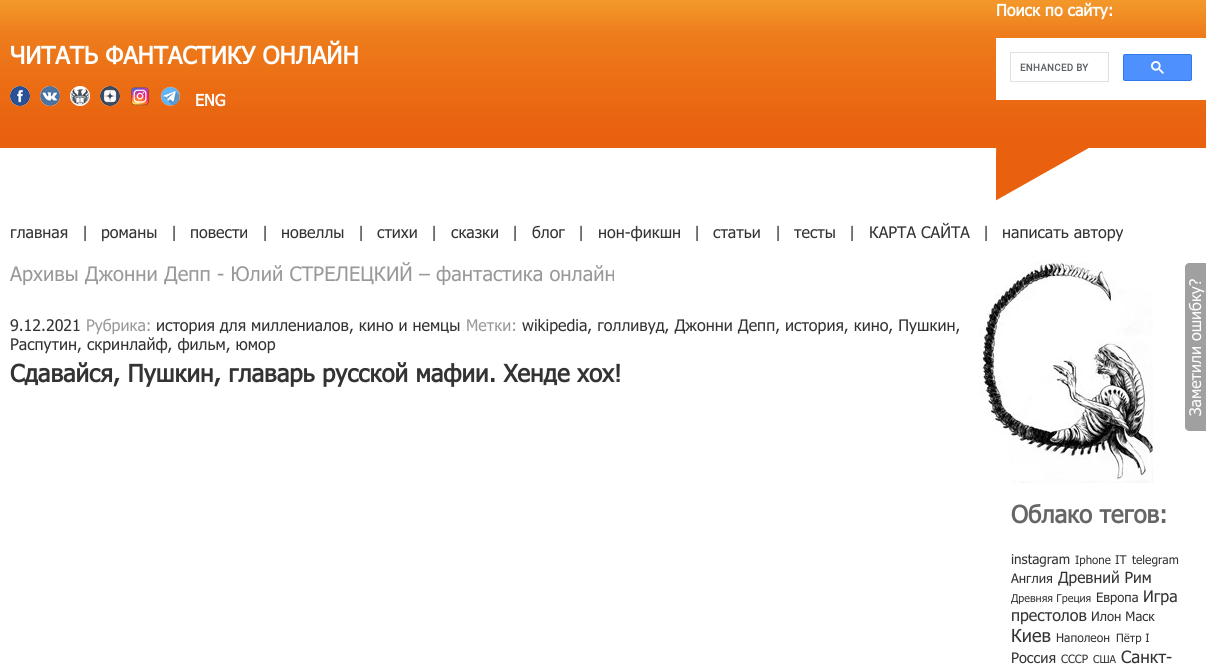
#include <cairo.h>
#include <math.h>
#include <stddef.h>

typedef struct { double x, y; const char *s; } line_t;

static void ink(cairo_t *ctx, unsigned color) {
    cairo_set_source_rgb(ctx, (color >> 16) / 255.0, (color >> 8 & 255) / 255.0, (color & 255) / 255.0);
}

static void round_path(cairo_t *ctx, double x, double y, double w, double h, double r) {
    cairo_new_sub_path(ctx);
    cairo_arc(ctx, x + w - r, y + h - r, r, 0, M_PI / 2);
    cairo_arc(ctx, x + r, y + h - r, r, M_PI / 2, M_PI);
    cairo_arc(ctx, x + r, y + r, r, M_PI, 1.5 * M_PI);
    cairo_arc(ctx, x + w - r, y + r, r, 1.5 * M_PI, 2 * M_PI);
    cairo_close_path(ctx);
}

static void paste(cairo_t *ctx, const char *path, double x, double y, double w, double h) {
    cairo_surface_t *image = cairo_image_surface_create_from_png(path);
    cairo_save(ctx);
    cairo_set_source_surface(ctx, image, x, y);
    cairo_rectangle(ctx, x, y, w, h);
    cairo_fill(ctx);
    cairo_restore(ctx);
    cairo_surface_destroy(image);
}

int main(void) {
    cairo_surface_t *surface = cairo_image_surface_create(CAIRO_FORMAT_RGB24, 1206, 664);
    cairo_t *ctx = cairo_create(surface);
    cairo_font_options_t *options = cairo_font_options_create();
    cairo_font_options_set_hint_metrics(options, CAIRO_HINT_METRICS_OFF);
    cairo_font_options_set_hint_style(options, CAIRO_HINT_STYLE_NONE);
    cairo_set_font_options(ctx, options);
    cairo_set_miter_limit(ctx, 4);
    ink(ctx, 0xFFFFFF);
    cairo_paint(ctx);
    paste(ctx, "media/1.png", 996, 0, 210, 201);
    cairo_select_font_face(ctx, "Tahoma", CAIRO_FONT_SLANT_NORMAL, CAIRO_FONT_WEIGHT_BOLD);
    cairo_set_font_size(ctx, 16);
    ink(ctx, 0xFFFFFF);
    cairo_move_to(ctx, 996, 16);
    cairo_show_text(ctx, "Поиск по сайту:");
    cairo_rectangle(ctx, 996, 38, 210, 62);
    cairo_fill(ctx);
    cairo_rectangle(ctx, 1010.5, 52.5, 98, 29);
    ink(ctx, 0xDFE1E5);
    cairo_set_line_width(ctx, 1);
    cairo_stroke(ctx);
    paste(ctx, "media/2.png", 1020, 63, 69, 8);
    ink(ctx, 0x4D90FE);
    round_path(ctx, 1123.5, 54.5, 68, 26, 1.5);
    cairo_fill_preserve(ctx);
    ink(ctx, 0x3079ED);
    cairo_stroke(ctx);
    paste(ctx, "media/3.png", 1151, 61, 13, 13);
    paste(ctx, "media/4.png", 0, 0, 996, 148);
    cairo_set_font_size(ctx, 24);
    ink(ctx, 0xFFFFFF);
    cairo_move_to(ctx, 10, 64);
    cairo_show_text(ctx, "ЧИТАТЬ ФАНТАСТИКУ ОНЛАЙН");
    paste(ctx, "media/5.png", 10, 86, 20, 20);
    paste(ctx, "media/6.png", 40, 86, 20, 20);
    paste(ctx, "media/7.png", 70, 86, 20, 20);
    paste(ctx, "media/8.png", 100, 86, 20, 20);
    paste(ctx, "media/9.png", 131, 87, 18, 19);
    paste(ctx, "media/10.png", 160, 86, 20, 20);
    cairo_set_font_size(ctx, 16);
    cairo_move_to(ctx, 195, 106);
    cairo_show_text(ctx, "ENG");
    cairo_select_font_face(ctx, "Tahoma", CAIRO_FONT_SLANT_NORMAL, CAIRO_FONT_WEIGHT_NORMAL);
    ink(ctx, 0x333333);
    {
        static const line_t items[] = {
            {10, 238, "главная"},
            {82, 238, "|"},
            {101, 238, "романы"},
            {171, 238, "|"},
            {190, 238, "повести"},
            {262, 238, "|"},
            {281, 238, "новеллы"},
            {358, 238, "|"},
            {377, 238, "стихи"},
            {431, 238, "|"},
            {451, 238, "сказки"},
            {512, 238, "|"},
            {532, 238, "блог"},
            {578, 238, "|"},
            {598, 238, "нон-фикшн"},
            {694, 238, "|"},
            {713, 238, "статьи"},
            {775, 238, "|"},
            {794, 238, "тесты"},
            {849, 238, "|"},
            {869, 238, "КАРТА САЙТА"},
            {983, 238, "|"},
            {1002, 238, "написать автору"},
        };
        for (size_t i = 0; i < sizeof items / sizeof *items; i++) {
            cairo_move_to(ctx, items[i].x, items[i].y);
            cairo_show_text(ctx, items[i].s);
        }
    }
    cairo_set_font_size(ctx, 20);
    ink(ctx, 0x999999);
    cairo_move_to(ctx, 10, 281);
    cairo_show_text(ctx, "Архивы Джонни Депп - Юлий СТРЕЛЕЦКИЙ – фантастика онлайн");
    cairo_set_font_size(ctx, 16);
    ink(ctx, 0x333333);
    cairo_move_to(ctx, 10, 331);
    cairo_show_text(ctx, "9.12.2021");
    ink(ctx, 0x999999);
    cairo_move_to(ctx, 86, 331);
    cairo_show_text(ctx, "Рубрика:");
    ink(ctx, 0x333333);
    cairo_move_to(ctx, 156, 331);
    cairo_show_text(ctx, "история для миллениалов, кино и немцы");
    ink(ctx, 0x999999);
    cairo_move_to(ctx, 466, 331);
    cairo_show_text(ctx, "Метки:");
    ink(ctx, 0x333333);
    cairo_move_to(ctx, 522, 331);
    cairo_show_text(ctx, "wikipedia, голливуд, Джонни Депп, история, кино, Пушкин,");
    cairo_move_to(ctx, 10, 350);
    cairo_show_text(ctx, "Распутин, скринлайф, фильм, юмор");
    cairo_select_font_face(ctx, "Tahoma", CAIRO_FONT_SLANT_NORMAL, CAIRO_FONT_WEIGHT_BOLD);
    cairo_set_font_size(ctx, 24);
    cairo_move_to(ctx, 10, 382);
    cairo_show_text(ctx, "Сдавайся, Пушкин, главарь русской мафии. Хенде хох!");
    paste(ctx, "media/11.png", 979, 261, 176, 222);
    ink(ctx, 0x666666);
    cairo_move_to(ctx, 1011, 523);
    cairo_show_text(ctx, "Облако тегов:");
    cairo_select_font_face(ctx, "Tahoma", CAIRO_FONT_SLANT_NORMAL, CAIRO_FONT_WEIGHT_NORMAL);
    cairo_set_font_size(ctx, 13.5);
    ink(ctx, 0x333333);
    cairo_move_to(ctx, 1011, 564);
    cairo_show_text(ctx, "instagram");
    cairo_set_font_size(ctx, 11.5);
    cairo_move_to(ctx, 1075, 564);
    cairo_show_text(ctx, "Iphone");
    cairo_set_font_size(ctx, 12);
    cairo_move_to(ctx, 1115, 564);
    cairo_show_text(ctx, "IT");
    cairo_move_to(ctx, 1132, 564);
    cairo_show_text(ctx, "telegram");
    cairo_set_font_size(ctx, 13);
    cairo_move_to(ctx, 1011, 583);
    cairo_show_text(ctx, "Англия");
    cairo_set_font_size(ctx, 15.5);
    cairo_move_to(ctx, 1058, 583);
    cairo_show_text(ctx, "Древний Рим");
    cairo_set_font_size(ctx, 10.75);
    cairo_move_to(ctx, 1011, 602);
    cairo_show_text(ctx, "Древняя Греция");
    cairo_set_font_size(ctx, 13);
    cairo_move_to(ctx, 1096, 602);
    cairo_show_text(ctx, "Европа");
    cairo_set_font_size(ctx, 16);
    cairo_move_to(ctx, 1143, 602);
    cairo_show_text(ctx, "Игра");
    cairo_move_to(ctx, 1011, 621);
    cairo_show_text(ctx, "престолов");
    cairo_set_font_size(ctx, 13);
    cairo_move_to(ctx, 1091, 621);
    cairo_show_text(ctx, "Илон Маск");
    cairo_set_font_size(ctx, 18);
    cairo_move_to(ctx, 1011, 642);
    cairo_show_text(ctx, "Киев");
    cairo_set_font_size(ctx, 12);
    cairo_move_to(ctx, 1056, 642);
    cairo_show_text(ctx, "Наполеон");
    cairo_set_font_size(ctx, 11.5);
    cairo_move_to(ctx, 1116, 642);
    cairo_show_text(ctx, "Пётр I");
    cairo_set_font_size(ctx, 14.5);
    cairo_move_to(ctx, 1011, 663);
    cairo_show_text(ctx, "Россия");
    cairo_set_font_size(ctx, 11.5);
    cairo_move_to(ctx, 1061, 663);
    cairo_show_text(ctx, "СССР");
    cairo_set_font_size(ctx, 10.75);
    cairo_move_to(ctx, 1093, 663);
    cairo_show_text(ctx, "США");
    cairo_set_font_size(ctx, 17);
    cairo_move_to(ctx, 1121, 663);
    cairo_show_text(ctx, "Санкт-");
    ink(ctx, 0xA0A0A0);
    cairo_new_path(ctx);
    cairo_move_to(ctx, 1185, 427);
    cairo_line_to(ctx, 1185, 267);
    cairo_curve_to(ctx, 1185, 265, 1187, 263, 1189, 263);
    cairo_line_to(ctx, 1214, 263);
    cairo_curve_to(ctx, 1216, 263, 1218, 265, 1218, 267);
    cairo_line_to(ctx, 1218, 427);
    cairo_curve_to(ctx, 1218, 429, 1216, 431, 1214, 431);
    cairo_line_to(ctx, 1189, 431);
    cairo_curve_to(ctx, 1187, 431, 1185, 429, 1185, 427);
    cairo_close_path(ctx);
    cairo_fill(ctx);
    cairo_set_font_size(ctx, 16);
    ink(ctx, 0xFFFFFF);
    cairo_save(ctx);
    cairo_translate(ctx, 1201, 416);
    cairo_rotate(ctx, -90 * M_PI / 180);
    cairo_move_to(ctx, 0, 0);
    cairo_show_text(ctx, "Заметили ошибку?");
    cairo_restore(ctx);
    cairo_surface_write_to_png(surface, "image.png");
    cairo_font_options_destroy(options);
    cairo_destroy(ctx);
    cairo_surface_destroy(surface);
    return 0;
}
